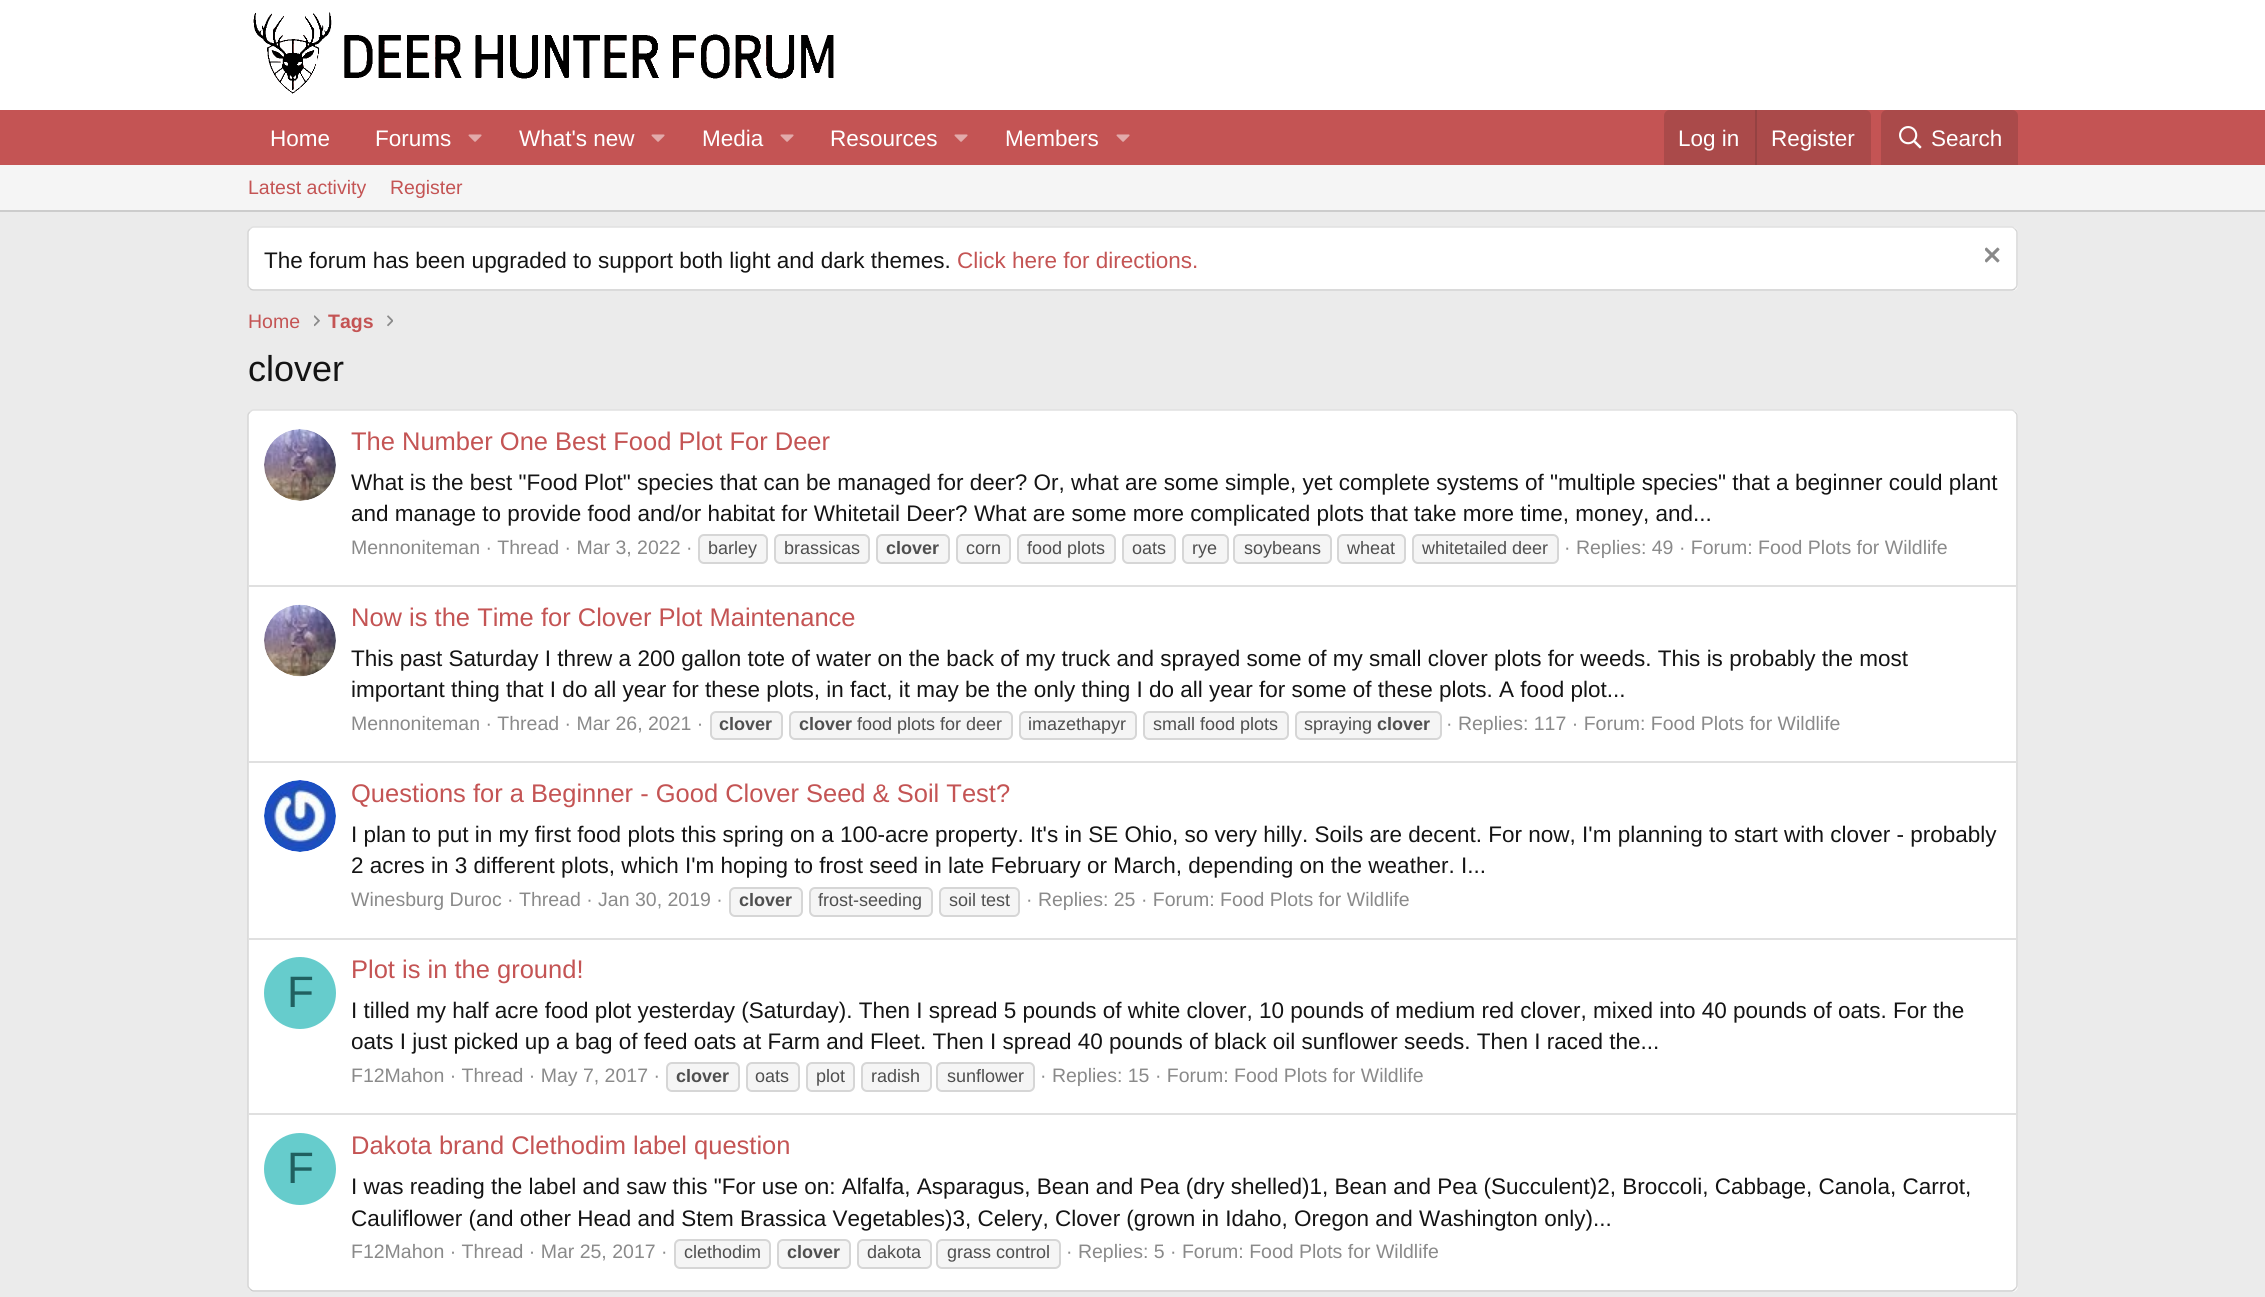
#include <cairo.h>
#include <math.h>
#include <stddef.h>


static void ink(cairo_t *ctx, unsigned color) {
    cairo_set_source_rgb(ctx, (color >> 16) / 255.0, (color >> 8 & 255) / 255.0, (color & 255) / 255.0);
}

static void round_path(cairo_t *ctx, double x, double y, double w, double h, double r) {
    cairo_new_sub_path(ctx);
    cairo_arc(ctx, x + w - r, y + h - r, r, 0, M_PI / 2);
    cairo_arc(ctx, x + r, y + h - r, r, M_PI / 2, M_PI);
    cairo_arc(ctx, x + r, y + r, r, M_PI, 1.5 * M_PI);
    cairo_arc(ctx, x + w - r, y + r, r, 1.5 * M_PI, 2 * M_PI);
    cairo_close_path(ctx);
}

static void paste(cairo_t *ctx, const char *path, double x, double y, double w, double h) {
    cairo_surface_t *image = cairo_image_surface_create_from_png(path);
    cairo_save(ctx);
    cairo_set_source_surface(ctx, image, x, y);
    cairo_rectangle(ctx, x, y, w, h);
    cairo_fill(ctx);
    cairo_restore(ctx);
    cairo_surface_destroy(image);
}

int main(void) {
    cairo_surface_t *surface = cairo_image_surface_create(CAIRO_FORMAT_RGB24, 2265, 1297);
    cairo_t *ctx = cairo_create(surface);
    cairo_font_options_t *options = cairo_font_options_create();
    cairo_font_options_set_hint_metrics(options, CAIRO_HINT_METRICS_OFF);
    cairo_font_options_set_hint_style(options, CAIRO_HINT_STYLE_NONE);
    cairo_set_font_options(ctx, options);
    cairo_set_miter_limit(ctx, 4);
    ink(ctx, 0xEBEBEB);
    cairo_paint(ctx);
    ink(ctx, 0xFFFFFF);
    cairo_rectangle(ctx, 0, 0, 2265, 110);
    cairo_fill(ctx);
    paste(ctx, "media/1.png", 253, 12, 581, 82);
    ink(ctx, 0xC45454);
    cairo_rectangle(ctx, 0, 110, 2265, 55);
    cairo_fill(ctx);
    cairo_select_font_face(ctx, "Liberation Sans", CAIRO_FONT_SLANT_NORMAL, CAIRO_FONT_WEIGHT_NORMAL);
    cairo_set_font_size(ctx, 22.5);
    ink(ctx, 0xFFFFFF);
    cairo_move_to(ctx, 270, 146);
    cairo_show_text(ctx, "Home");
    cairo_move_to(ctx, 375, 146);
    cairo_show_text(ctx, "Forums");
    paste(ctx, "media/2.png", 468, 134, 14, 8);
    cairo_move_to(ctx, 519, 146);
    cairo_show_text(ctx, "What's new");
    paste(ctx, "media/2.png", 651, 134, 14, 8);
    cairo_move_to(ctx, 702, 146);
    cairo_show_text(ctx, "Media");
    paste(ctx, "media/2.png", 780, 134, 14, 8);
    cairo_move_to(ctx, 830, 146);
    cairo_show_text(ctx, "Resources");
    paste(ctx, "media/2.png", 954, 134, 14, 8);
    cairo_move_to(ctx, 1005, 146);
    cairo_show_text(ctx, "Members");
    paste(ctx, "media/2.png", 1116, 134, 14, 8);
    ink(ctx, 0xAA4A4A);
    cairo_new_path(ctx);
    cairo_move_to(ctx, 1670, 110);
    cairo_line_to(ctx, 1865, 110);
    cairo_curve_to(ctx, 1868.5, 110, 1871, 112.5, 1871, 116);
    cairo_line_to(ctx, 1871, 165);
    cairo_line_to(ctx, 1664, 165);
    cairo_line_to(ctx, 1664, 116);
    cairo_curve_to(ctx, 1664, 112.5, 1666.5, 110, 1670, 110);
    cairo_close_path(ctx);
    cairo_fill(ctx);
    ink(ctx, 0xFFFFFF);
    cairo_move_to(ctx, 1678, 146);
    cairo_show_text(ctx, "Log in");
    ink(ctx, 0x944242);
    cairo_rectangle(ctx, 1755, 110, 2, 55);
    cairo_fill(ctx);
    ink(ctx, 0xFFFFFF);
    cairo_move_to(ctx, 1771, 146);
    cairo_show_text(ctx, "Register");
    ink(ctx, 0xAA4A4A);
    cairo_new_path(ctx);
    cairo_move_to(ctx, 1887, 110);
    cairo_line_to(ctx, 2012, 110);
    cairo_curve_to(ctx, 2015.5, 110, 2018, 112.5, 2018, 116);
    cairo_line_to(ctx, 2018, 165);
    cairo_line_to(ctx, 1881, 165);
    cairo_line_to(ctx, 1881, 116);
    cairo_curve_to(ctx, 1881, 112.5, 1883.5, 110, 1887, 110);
    cairo_close_path(ctx);
    cairo_fill(ctx);
    paste(ctx, "media/3.png", 1899, 126, 23, 23);
    ink(ctx, 0xFFFFFF);
    cairo_move_to(ctx, 1931, 146);
    cairo_show_text(ctx, "Search");
    ink(ctx, 0xF5F5F5);
    cairo_rectangle(ctx, 0, 165, 2265, 45);
    cairo_fill(ctx);
    ink(ctx, 0xCCCCCC);
    cairo_rectangle(ctx, 0, 210, 2265, 2);
    cairo_fill(ctx);
    cairo_set_font_size(ctx, 19.5);
    ink(ctx, 0xC45454);
    cairo_move_to(ctx, 248, 194);
    cairo_show_text(ctx, "Latest activity");
    cairo_move_to(ctx, 390, 194);
    cairo_show_text(ctx, "Register");
    ink(ctx, 0xFFFFFF);
    round_path(ctx, 248, 227, 1770, 64, 6);
    cairo_fill(ctx);
    cairo_new_path(ctx);
    cairo_move_to(ctx, 250, 229);
    cairo_curve_to(ctx, 251, 228, 252, 227, 253.5, 227);
    cairo_line_to(ctx, 2011.5, 227);
    cairo_curve_to(ctx, 2013, 227, 2014, 228, 2015, 229);
    ink(ctx, 0xE0E0E0);
    cairo_set_line_width(ctx, 1.5);
    cairo_stroke(ctx);
    cairo_new_path(ctx);
    cairo_move_to(ctx, 2015, 229);
    cairo_curve_to(ctx, 2016, 230, 2017, 231, 2017, 232.5);
    cairo_line_to(ctx, 2017, 285);
    cairo_curve_to(ctx, 2017, 286.5, 2016, 287.5, 2015, 288.5);
    ink(ctx, 0xD6D6D6);
    cairo_stroke(ctx);
    cairo_new_path(ctx);
    cairo_move_to(ctx, 2015, 288.5);
    cairo_curve_to(ctx, 2014, 289.5, 2013, 290, 2011.5, 290);
    cairo_line_to(ctx, 253.5, 290);
    cairo_curve_to(ctx, 252, 290, 251, 289.5, 250, 288.5);
    ink(ctx, 0xCCCCCC);
    cairo_stroke(ctx);
    cairo_new_path(ctx);
    cairo_move_to(ctx, 250, 288.5);
    cairo_curve_to(ctx, 249, 287.5, 248, 286.5, 248, 285);
    cairo_line_to(ctx, 248, 232.5);
    cairo_curve_to(ctx, 248, 231, 249, 230, 250, 229);
    ink(ctx, 0xD6D6D6);
    cairo_stroke(ctx);
    cairo_set_font_size(ctx, 22.5);
    ink(ctx, 0x141414);
    cairo_move_to(ctx, 264, 268);
    cairo_show_text(ctx, "The forum has been upgraded to support both light and dark themes.");
    ink(ctx, 0xC45454);
    cairo_move_to(ctx, 957, 268);
    cairo_show_text(ctx, "Click here for directions.");
    paste(ctx, "media/4.png", 1985, 247, 15, 16);
    cairo_set_font_size(ctx, 19.5);
    cairo_move_to(ctx, 248, 328);
    cairo_show_text(ctx, "Home");
    paste(ctx, "media/5.png", 314, 315, 6, 12);
    cairo_select_font_face(ctx, "Liberation Sans", CAIRO_FONT_SLANT_NORMAL, CAIRO_FONT_WEIGHT_BOLD);
    cairo_move_to(ctx, 328, 328);
    cairo_show_text(ctx, "Tags");
    paste(ctx, "media/6.png", 387, 315, 6, 12);
    cairo_select_font_face(ctx, "Liberation Sans", CAIRO_FONT_SLANT_NORMAL, CAIRO_FONT_WEIGHT_NORMAL);
    cairo_set_font_size(ctx, 36);
    ink(ctx, 0x141414);
    cairo_move_to(ctx, 248, 381);
    cairo_show_text(ctx, "clover");
    ink(ctx, 0xFFFFFF);
    round_path(ctx, 248, 410, 1770, 882, 6);
    cairo_fill(ctx);
    cairo_new_path(ctx);
    cairo_move_to(ctx, 250, 412);
    cairo_curve_to(ctx, 251, 411, 252, 410, 253.5, 410);
    cairo_line_to(ctx, 2011.5, 410);
    cairo_curve_to(ctx, 2013, 410, 2014, 411, 2015, 412);
    ink(ctx, 0xE0E0E0);
    cairo_stroke(ctx);
    cairo_new_path(ctx);
    cairo_move_to(ctx, 2015, 412);
    cairo_curve_to(ctx, 2016, 413, 2017, 414, 2017, 415.5);
    cairo_line_to(ctx, 2017, 1285.5);
    cairo_curve_to(ctx, 2017, 1287, 2016, 1288, 2015, 1289);
    ink(ctx, 0xD6D6D6);
    cairo_stroke(ctx);
    cairo_new_path(ctx);
    cairo_move_to(ctx, 2015, 1289);
    cairo_curve_to(ctx, 2014, 1290, 2013, 1291, 2011.5, 1291);
    cairo_line_to(ctx, 253.5, 1291);
    cairo_curve_to(ctx, 252, 1291, 251, 1290, 250, 1289);
    ink(ctx, 0xCCCCCC);
    cairo_stroke(ctx);
    cairo_new_path(ctx);
    cairo_move_to(ctx, 250, 1289);
    cairo_curve_to(ctx, 249, 1288, 248, 1287, 248, 1285.5);
    cairo_line_to(ctx, 248, 415.5);
    cairo_curve_to(ctx, 248, 414, 249, 413, 250, 412);
    ink(ctx, 0xD6D6D6);
    cairo_stroke(ctx);
    paste(ctx, "media/7.png", 264, 429, 72, 72);
    cairo_set_font_size(ctx, 25.5);
    ink(ctx, 0xC45454);
    cairo_move_to(ctx, 351, 450);
    cairo_show_text(ctx, "The Number One Best Food Plot For Deer");
    cairo_set_font_size(ctx, 22.5);
    ink(ctx, 0x141414);
    cairo_move_to(ctx, 351, 490);
    cairo_show_text(ctx, "What is the best \"Food Plot\" species that can be managed for deer? Or, what are some simple, yet complete systems of \"multiple species\" that a beginner could plant");
    cairo_move_to(ctx, 351, 521);
    cairo_show_text(ctx, "and manage to provide food and/or habitat for Whitetail Deer? What are some more complicated plots that take more time, money, and...");
    cairo_set_font_size(ctx, 19.5);
    ink(ctx, 0x8A8A8A);
    cairo_move_to(ctx, 351, 554);
    cairo_show_text(ctx, "Mennoniteman · Thread · Mar 3, 2022 ·");
    ink(ctx, 0xF5F5F5);
    round_path(ctx, 699, 535, 68, 28, 5);
    cairo_fill_preserve(ctx);
    ink(ctx, 0xD6D6D6);
    cairo_set_line_width(ctx, 2);
    cairo_stroke(ctx);
    cairo_set_font_size(ctx, 18);
    ink(ctx, 0x4F4F4F);
    cairo_move_to(ctx, 708, 554);
    cairo_show_text(ctx, "barley");
    ink(ctx, 0xF5F5F5);
    round_path(ctx, 775, 535, 94, 28, 5);
    cairo_fill_preserve(ctx);
    ink(ctx, 0xD6D6D6);
    cairo_stroke(ctx);
    ink(ctx, 0x4F4F4F);
    cairo_move_to(ctx, 784, 554);
    cairo_show_text(ctx, "brassicas");
    ink(ctx, 0xF5F5F5);
    round_path(ctx, 877, 535, 72, 28, 5);
    cairo_fill_preserve(ctx);
    ink(ctx, 0xD6D6D6);
    cairo_stroke(ctx);
    cairo_select_font_face(ctx, "Liberation Sans", CAIRO_FONT_SLANT_NORMAL, CAIRO_FONT_WEIGHT_BOLD);
    ink(ctx, 0x4F4F4F);
    cairo_move_to(ctx, 886, 554);
    cairo_show_text(ctx, "clover");
    ink(ctx, 0xF5F5F5);
    round_path(ctx, 957, 535, 53, 28, 5);
    cairo_fill_preserve(ctx);
    ink(ctx, 0xD6D6D6);
    cairo_stroke(ctx);
    cairo_select_font_face(ctx, "Liberation Sans", CAIRO_FONT_SLANT_NORMAL, CAIRO_FONT_WEIGHT_NORMAL);
    ink(ctx, 0x4F4F4F);
    cairo_move_to(ctx, 966, 554);
    cairo_show_text(ctx, "corn");
    ink(ctx, 0xF5F5F5);
    round_path(ctx, 1018, 535, 97, 28, 5);
    cairo_fill_preserve(ctx);
    ink(ctx, 0xD6D6D6);
    cairo_stroke(ctx);
    ink(ctx, 0x4F4F4F);
    cairo_move_to(ctx, 1027, 554);
    cairo_show_text(ctx, "food plots");
    ink(ctx, 0xF5F5F5);
    round_path(ctx, 1123, 535, 52, 28, 5);
    cairo_fill_preserve(ctx);
    ink(ctx, 0xD6D6D6);
    cairo_stroke(ctx);
    ink(ctx, 0x4F4F4F);
    cairo_move_to(ctx, 1132, 554);
    cairo_show_text(ctx, "oats");
    ink(ctx, 0xF5F5F5);
    round_path(ctx, 1183, 535, 45, 28, 5);
    cairo_fill_preserve(ctx);
    ink(ctx, 0xD6D6D6);
    cairo_stroke(ctx);
    ink(ctx, 0x4F4F4F);
    cairo_move_to(ctx, 1192, 554);
    cairo_show_text(ctx, "rye");
    ink(ctx, 0xF5F5F5);
    round_path(ctx, 1234, 535, 97, 28, 5);
    cairo_fill_preserve(ctx);
    ink(ctx, 0xD6D6D6);
    cairo_stroke(ctx);
    ink(ctx, 0x4F4F4F);
    cairo_move_to(ctx, 1244, 554);
    cairo_show_text(ctx, "soybeans");
    ink(ctx, 0xF5F5F5);
    round_path(ctx, 1338, 535, 67, 28, 5);
    cairo_fill_preserve(ctx);
    ink(ctx, 0xD6D6D6);
    cairo_stroke(ctx);
    ink(ctx, 0x4F4F4F);
    cairo_move_to(ctx, 1347, 554);
    cairo_show_text(ctx, "wheat");
    ink(ctx, 0xF5F5F5);
    round_path(ctx, 1413, 535, 145, 28, 5);
    cairo_fill_preserve(ctx);
    ink(ctx, 0xD6D6D6);
    cairo_stroke(ctx);
    ink(ctx, 0x4F4F4F);
    cairo_move_to(ctx, 1422, 554);
    cairo_show_text(ctx, "whitetailed deer");
    cairo_set_font_size(ctx, 19.5);
    ink(ctx, 0x8A8A8A);
    cairo_move_to(ctx, 1564, 554);
    cairo_show_text(ctx, "· Replies: 49 · Forum: Food Plots for Wildlife");
    ink(ctx, 0xE0E0E0);
    cairo_rectangle(ctx, 249, 585, 1767, 2);
    cairo_fill(ctx);
    paste(ctx, "media/8.png", 264, 604, 72, 73);
    cairo_set_font_size(ctx, 25.5);
    ink(ctx, 0xC45454);
    cairo_move_to(ctx, 351, 626);
    cairo_show_text(ctx, "Now is the Time for Clover Plot Maintenance");
    cairo_set_font_size(ctx, 22.5);
    ink(ctx, 0x141414);
    cairo_move_to(ctx, 351, 666);
    cairo_show_text(ctx, "This past Saturday I threw a 200 gallon tote of water on the back of my truck and sprayed some of my small clover plots for weeds. This is probably the most");
    cairo_move_to(ctx, 351, 697);
    cairo_show_text(ctx, "important thing that I do all year for these plots, in fact, it may be the only thing I do all year for some of these plots. A food plot...");
    cairo_set_font_size(ctx, 19.5);
    ink(ctx, 0x8A8A8A);
    cairo_move_to(ctx, 351, 730);
    cairo_show_text(ctx, "Mennoniteman · Thread · Mar 26, 2021 ·");
    ink(ctx, 0xF5F5F5);
    round_path(ctx, 711, 712, 71, 27, 5);
    cairo_fill_preserve(ctx);
    ink(ctx, 0xD6D6D6);
    cairo_stroke(ctx);
    cairo_select_font_face(ctx, "Liberation Sans", CAIRO_FONT_SLANT_NORMAL, CAIRO_FONT_WEIGHT_BOLD);
    cairo_set_font_size(ctx, 18);
    ink(ctx, 0x4F4F4F);
    cairo_move_to(ctx, 719, 730);
    cairo_show_text(ctx, "clover");
    ink(ctx, 0xF5F5F5);
    round_path(ctx, 790, 712, 222, 27, 5);
    cairo_fill_preserve(ctx);
    ink(ctx, 0xD6D6D6);
    cairo_stroke(ctx);
    ink(ctx, 0x4F4F4F);
    cairo_move_to(ctx, 799, 730);
    cairo_show_text(ctx, "clover");
    cairo_select_font_face(ctx, "Liberation Sans", CAIRO_FONT_SLANT_NORMAL, CAIRO_FONT_WEIGHT_NORMAL);
    cairo_move_to(ctx, 857, 730);
    cairo_show_text(ctx, "food plots for deer");
    ink(ctx, 0xF5F5F5);
    round_path(ctx, 1020, 712, 116, 27, 5);
    cairo_fill_preserve(ctx);
    ink(ctx, 0xD6D6D6);
    cairo_stroke(ctx);
    ink(ctx, 0x4F4F4F);
    cairo_move_to(ctx, 1028, 730);
    cairo_show_text(ctx, "imazethapyr");
    ink(ctx, 0xF5F5F5);
    round_path(ctx, 1144, 712, 144, 27, 5);
    cairo_fill_preserve(ctx);
    ink(ctx, 0xD6D6D6);
    cairo_stroke(ctx);
    ink(ctx, 0x4F4F4F);
    cairo_move_to(ctx, 1153, 730);
    cairo_show_text(ctx, "small food plots");
    ink(ctx, 0xF5F5F5);
    round_path(ctx, 1296, 712, 145, 27, 5);
    cairo_fill_preserve(ctx);
    ink(ctx, 0xD6D6D6);
    cairo_stroke(ctx);
    ink(ctx, 0x4F4F4F);
    cairo_move_to(ctx, 1304, 730);
    cairo_show_text(ctx, "spraying");
    cairo_select_font_face(ctx, "Liberation Sans", CAIRO_FONT_SLANT_NORMAL, CAIRO_FONT_WEIGHT_BOLD);
    cairo_move_to(ctx, 1377, 730);
    cairo_show_text(ctx, "clover");
    cairo_select_font_face(ctx, "Liberation Sans", CAIRO_FONT_SLANT_NORMAL, CAIRO_FONT_WEIGHT_NORMAL);
    cairo_set_font_size(ctx, 19.5);
    ink(ctx, 0x8A8A8A);
    cairo_move_to(ctx, 1446, 730);
    cairo_show_text(ctx, "· Replies: 117 · Forum: Food Plots for Wildlife");
    ink(ctx, 0xE0E0E0);
    cairo_rectangle(ctx, 249, 761, 1767, 2);
    cairo_fill(ctx);
    paste(ctx, "media/9.png", 264, 780, 72, 72);
    cairo_set_font_size(ctx, 25.5);
    ink(ctx, 0xC45454);
    cairo_move_to(ctx, 351, 802);
    cairo_show_text(ctx, "Questions for a Beginner - Good Clover Seed & Soil Test?");
    cairo_set_font_size(ctx, 22.5);
    ink(ctx, 0x141414);
    cairo_move_to(ctx, 351, 842);
    cairo_show_text(ctx, "I plan to put in my first food plots this spring on a 100-acre property. It's in SE Ohio, so very hilly. Soils are decent. For now, I'm planning to start with clover - probably");
    cairo_move_to(ctx, 351, 873);
    cairo_show_text(ctx, "2 acres in 3 different plots, which I'm hoping to frost seed in late February or March, depending on the weather. I...");
    cairo_set_font_size(ctx, 19.5);
    ink(ctx, 0x8A8A8A);
    cairo_move_to(ctx, 351, 906);
    cairo_show_text(ctx, "Winesburg Duroc · Thread · Jan 30, 2019 ·");
    ink(ctx, 0xF5F5F5);
    round_path(ctx, 730, 888, 72, 28, 5);
    cairo_fill_preserve(ctx);
    ink(ctx, 0xD6D6D6);
    cairo_stroke(ctx);
    cairo_select_font_face(ctx, "Liberation Sans", CAIRO_FONT_SLANT_NORMAL, CAIRO_FONT_WEIGHT_BOLD);
    cairo_set_font_size(ctx, 18);
    ink(ctx, 0x4F4F4F);
    cairo_move_to(ctx, 739, 906);
    cairo_show_text(ctx, "clover");
    ink(ctx, 0xF5F5F5);
    round_path(ctx, 810, 888, 122, 28, 5);
    cairo_fill_preserve(ctx);
    ink(ctx, 0xD6D6D6);
    cairo_stroke(ctx);
    cairo_select_font_face(ctx, "Liberation Sans", CAIRO_FONT_SLANT_NORMAL, CAIRO_FONT_WEIGHT_NORMAL);
    ink(ctx, 0x4F4F4F);
    cairo_move_to(ctx, 818, 906);
    cairo_show_text(ctx, "frost-seeding");
    ink(ctx, 0xF5F5F5);
    round_path(ctx, 940, 888, 79, 28, 5);
    cairo_fill_preserve(ctx);
    ink(ctx, 0xD6D6D6);
    cairo_stroke(ctx);
    ink(ctx, 0x4F4F4F);
    cairo_move_to(ctx, 949, 906);
    cairo_show_text(ctx, "soil test");
    cairo_set_font_size(ctx, 19.5);
    ink(ctx, 0x8A8A8A);
    cairo_move_to(ctx, 1026, 906);
    cairo_show_text(ctx, "· Replies: 25 · Forum: Food Plots for Wildlife");
    ink(ctx, 0xE0E0E0);
    cairo_rectangle(ctx, 249, 938, 1767, 2);
    cairo_fill(ctx);
    ink(ctx, 0x66CCCC);
    cairo_arc(ctx, 300, 993, 36, 0, 2 * M_PI);
    cairo_fill(ctx);
    cairo_set_font_size(ctx, 44);
    ink(ctx, 0x206060);
    cairo_move_to(ctx, 287, 1007);
    cairo_show_text(ctx, "F");
    cairo_set_font_size(ctx, 25.5);
    ink(ctx, 0xC45454);
    cairo_move_to(ctx, 351, 978);
    cairo_show_text(ctx, "Plot is in the ground!");
    cairo_set_font_size(ctx, 22.5);
    ink(ctx, 0x141414);
    cairo_move_to(ctx, 351, 1018);
    cairo_show_text(ctx, "I tilled my half acre food plot yesterday (Saturday). Then I spread 5 pounds of white clover, 10 pounds of medium red clover, mixed into 40 pounds of oats. For the");
    cairo_move_to(ctx, 351, 1049);
    cairo_show_text(ctx, "oats I just picked up a bag of feed oats at Farm and Fleet. Then I spread 40 pounds of black oil sunflower seeds. Then I raced the...");
    cairo_set_font_size(ctx, 19.5);
    ink(ctx, 0x8A8A8A);
    cairo_move_to(ctx, 351, 1082);
    cairo_show_text(ctx, "F12Mahon · Thread · May 7, 2017 ·");
    ink(ctx, 0xF5F5F5);
    round_path(ctx, 667, 1063, 72, 28, 5);
    cairo_fill_preserve(ctx);
    ink(ctx, 0xD6D6D6);
    cairo_stroke(ctx);
    cairo_select_font_face(ctx, "Liberation Sans", CAIRO_FONT_SLANT_NORMAL, CAIRO_FONT_WEIGHT_BOLD);
    cairo_set_font_size(ctx, 18);
    ink(ctx, 0x4F4F4F);
    cairo_move_to(ctx, 676, 1082);
    cairo_show_text(ctx, "clover");
    ink(ctx, 0xF5F5F5);
    round_path(ctx, 747, 1063, 52, 28, 5);
    cairo_fill_preserve(ctx);
    ink(ctx, 0xD6D6D6);
    cairo_stroke(ctx);
    cairo_select_font_face(ctx, "Liberation Sans", CAIRO_FONT_SLANT_NORMAL, CAIRO_FONT_WEIGHT_NORMAL);
    ink(ctx, 0x4F4F4F);
    cairo_move_to(ctx, 755, 1082);
    cairo_show_text(ctx, "oats");
    ink(ctx, 0xF5F5F5);
    round_path(ctx, 807, 1063, 47, 28, 5);
    cairo_fill_preserve(ctx);
    ink(ctx, 0xD6D6D6);
    cairo_stroke(ctx);
    ink(ctx, 0x4F4F4F);
    cairo_move_to(ctx, 816, 1082);
    cairo_show_text(ctx, "plot");
    ink(ctx, 0xF5F5F5);
    round_path(ctx, 862, 1063, 69, 28, 5);
    cairo_fill_preserve(ctx);
    ink(ctx, 0xD6D6D6);
    cairo_stroke(ctx);
    ink(ctx, 0x4F4F4F);
    cairo_move_to(ctx, 871, 1082);
    cairo_show_text(ctx, "radish");
    ink(ctx, 0xF5F5F5);
    round_path(ctx, 937, 1063, 97, 28, 5);
    cairo_fill_preserve(ctx);
    ink(ctx, 0xD6D6D6);
    cairo_stroke(ctx);
    ink(ctx, 0x4F4F4F);
    cairo_move_to(ctx, 947, 1082);
    cairo_show_text(ctx, "sunflower");
    cairo_set_font_size(ctx, 19.5);
    ink(ctx, 0x8A8A8A);
    cairo_move_to(ctx, 1040, 1082);
    cairo_show_text(ctx, "· Replies: 15 · Forum: Food Plots for Wildlife");
    ink(ctx, 0xE0E0E0);
    cairo_rectangle(ctx, 249, 1113, 1767, 2);
    cairo_fill(ctx);
    ink(ctx, 0x66CCCC);
    cairo_arc(ctx, 300, 1169, 36, 0, 2 * M_PI);
    cairo_fill(ctx);
    cairo_set_font_size(ctx, 44);
    ink(ctx, 0x206060);
    cairo_move_to(ctx, 287, 1183);
    cairo_show_text(ctx, "F");
    cairo_set_font_size(ctx, 25.5);
    ink(ctx, 0xC45454);
    cairo_move_to(ctx, 351, 1154);
    cairo_show_text(ctx, "Dakota brand Clethodim label question");
    cairo_set_font_size(ctx, 22.5);
    ink(ctx, 0x141414);
    cairo_move_to(ctx, 351, 1194);
    cairo_show_text(ctx, "I was reading the label and saw this \"For use on: Alfalfa, Asparagus, Bean and Pea (dry shelled)1, Bean and Pea (Succulent)2, Broccoli, Cabbage, Canola, Carrot,");
    cairo_move_to(ctx, 351, 1226);
    cairo_show_text(ctx, "Cauliflower (and other Head and Stem Brassica Vegetables)3, Celery, Clover (grown in Idaho, Oregon and Washington only)...");
    cairo_set_font_size(ctx, 19.5);
    ink(ctx, 0x8A8A8A);
    cairo_move_to(ctx, 351, 1258);
    cairo_show_text(ctx, "F12Mahon · Thread · Mar 25, 2017 ·");
    ink(ctx, 0xF5F5F5);
    round_path(ctx, 675, 1240, 95, 28, 5);
    cairo_fill_preserve(ctx);
    ink(ctx, 0xD6D6D6);
    cairo_stroke(ctx);
    cairo_set_font_size(ctx, 18);
    ink(ctx, 0x4F4F4F);
    cairo_move_to(ctx, 684, 1258);
    cairo_show_text(ctx, "clethodim");
    ink(ctx, 0xF5F5F5);
    round_path(ctx, 778, 1240, 72, 28, 5);
    cairo_fill_preserve(ctx);
    ink(ctx, 0xD6D6D6);
    cairo_stroke(ctx);
    cairo_select_font_face(ctx, "Liberation Sans", CAIRO_FONT_SLANT_NORMAL, CAIRO_FONT_WEIGHT_BOLD);
    ink(ctx, 0x4F4F4F);
    cairo_move_to(ctx, 787, 1258);
    cairo_show_text(ctx, "clover");
    ink(ctx, 0xF5F5F5);
    round_path(ctx, 858, 1240, 73, 28, 5);
    cairo_fill_preserve(ctx);
    ink(ctx, 0xD6D6D6);
    cairo_stroke(ctx);
    cairo_select_font_face(ctx, "Liberation Sans", CAIRO_FONT_SLANT_NORMAL, CAIRO_FONT_WEIGHT_NORMAL);
    ink(ctx, 0x4F4F4F);
    cairo_move_to(ctx, 867, 1258);
    cairo_show_text(ctx, "dakota");
    ink(ctx, 0xF5F5F5);
    round_path(ctx, 937, 1240, 123, 28, 5);
    cairo_fill_preserve(ctx);
    ink(ctx, 0xD6D6D6);
    cairo_stroke(ctx);
    ink(ctx, 0x4F4F4F);
    cairo_move_to(ctx, 947, 1258);
    cairo_show_text(ctx, "grass control");
    cairo_set_font_size(ctx, 19.5);
    ink(ctx, 0x8A8A8A);
    cairo_move_to(ctx, 1066, 1258);
    cairo_show_text(ctx, "· Replies: 5 · Forum: Food Plots for Wildlife");
    cairo_surface_write_to_png(surface, "image.png");
    cairo_font_options_destroy(options);
    cairo_destroy(ctx);
    cairo_surface_destroy(surface);
    return 0;
}
